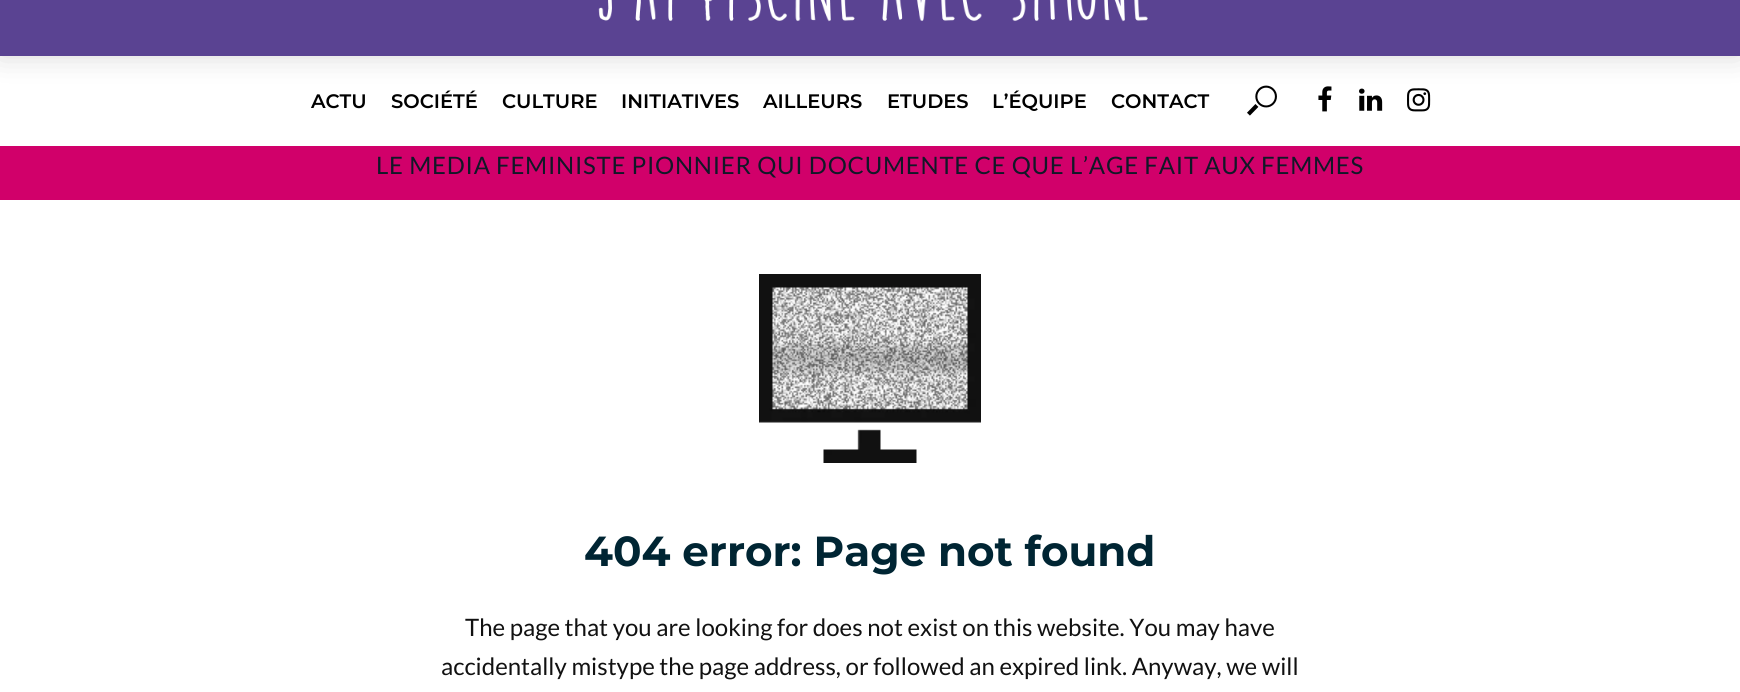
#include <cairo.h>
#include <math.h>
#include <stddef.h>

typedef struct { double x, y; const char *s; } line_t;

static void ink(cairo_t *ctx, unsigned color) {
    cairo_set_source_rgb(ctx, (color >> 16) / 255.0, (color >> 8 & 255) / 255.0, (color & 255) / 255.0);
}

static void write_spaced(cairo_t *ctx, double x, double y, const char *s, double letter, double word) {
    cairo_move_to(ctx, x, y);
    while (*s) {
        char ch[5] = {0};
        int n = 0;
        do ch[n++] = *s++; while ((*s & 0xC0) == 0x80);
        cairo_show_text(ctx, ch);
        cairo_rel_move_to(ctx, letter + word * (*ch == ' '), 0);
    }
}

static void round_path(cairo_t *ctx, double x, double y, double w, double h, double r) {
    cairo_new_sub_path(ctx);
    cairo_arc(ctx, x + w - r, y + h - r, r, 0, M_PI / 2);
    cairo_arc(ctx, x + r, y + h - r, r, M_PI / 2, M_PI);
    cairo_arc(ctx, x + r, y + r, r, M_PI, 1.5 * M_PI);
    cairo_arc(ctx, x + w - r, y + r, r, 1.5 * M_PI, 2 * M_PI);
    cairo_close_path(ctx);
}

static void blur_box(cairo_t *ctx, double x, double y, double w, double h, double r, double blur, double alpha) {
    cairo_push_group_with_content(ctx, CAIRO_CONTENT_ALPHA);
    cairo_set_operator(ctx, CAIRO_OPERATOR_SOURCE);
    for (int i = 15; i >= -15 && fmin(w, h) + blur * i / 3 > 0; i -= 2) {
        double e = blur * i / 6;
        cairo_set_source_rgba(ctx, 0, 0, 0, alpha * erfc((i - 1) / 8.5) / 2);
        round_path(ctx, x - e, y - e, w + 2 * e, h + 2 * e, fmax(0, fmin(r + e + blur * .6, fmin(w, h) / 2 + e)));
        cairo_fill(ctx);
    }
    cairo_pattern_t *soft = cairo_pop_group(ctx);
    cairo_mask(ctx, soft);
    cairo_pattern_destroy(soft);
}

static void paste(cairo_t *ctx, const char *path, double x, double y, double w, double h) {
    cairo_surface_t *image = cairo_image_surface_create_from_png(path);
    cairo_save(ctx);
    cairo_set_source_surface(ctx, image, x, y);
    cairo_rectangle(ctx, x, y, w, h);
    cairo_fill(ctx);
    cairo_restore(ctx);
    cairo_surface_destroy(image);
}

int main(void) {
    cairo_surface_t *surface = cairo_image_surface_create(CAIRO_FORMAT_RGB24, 1740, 692);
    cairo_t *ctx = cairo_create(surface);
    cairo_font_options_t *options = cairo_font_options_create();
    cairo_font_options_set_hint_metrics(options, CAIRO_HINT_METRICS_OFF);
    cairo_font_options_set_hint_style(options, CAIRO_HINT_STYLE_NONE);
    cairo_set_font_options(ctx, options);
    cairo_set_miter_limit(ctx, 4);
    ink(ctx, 0xFFFFFF);
    cairo_paint(ctx);
    paste(ctx, "media/2.png", 1247, 85, 30, 31);
    paste(ctx, "media/3.png", 1318, 86, 14, 26);
    paste(ctx, "media/4.png", 1359, 88, 24, 23);
    paste(ctx, "media/5.png", 1407, 88, 24, 24);
    ink(ctx, 0x000000);
    blur_box(ctx, 0, -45, 1740, 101, 0, 15, 0.15);
    ink(ctx, 0x5A4392);
    cairo_rectangle(ctx, 0, 0, 1740, 56);
    cairo_fill(ctx);
    paste(ctx, "media/1.png", 598, 0, 550, 22);
    cairo_select_font_face(ctx, "Montserrat SemiBold", CAIRO_FONT_SLANT_NORMAL, CAIRO_FONT_WEIGHT_NORMAL);
    cairo_set_font_size(ctx, 19.5);
    ink(ctx, 0x000000);
    {
        static const line_t items[] = {
            {311, 108, "ACTU"},
            {391, 108, "SOCIÉTÉ"},
            {502, 108, "CULTURE"},
            {621, 108, "INITIATIVES"},
            {763, 108, "AILLEURS"},
            {887, 108, "ETUDES"},
            {992, 108, "L’ÉQUIPE"},
            {1111, 108, "CONTACT"},
        };
        for (size_t i = 0; i < sizeof items / sizeof *items; i++) {
            cairo_move_to(ctx, items[i].x, items[i].y);
            cairo_show_text(ctx, items[i].s);
        }
    }
    ink(ctx, 0xD1006A);
    cairo_rectangle(ctx, 0, 146, 1740, 54);
    cairo_fill(ctx);
    cairo_select_font_face(ctx, "Lato", CAIRO_FONT_SLANT_NORMAL, CAIRO_FONT_WEIGHT_NORMAL);
    cairo_set_font_size(ctx, 24);
    ink(ctx, 0x111827);
    write_spaced(ctx, 376, 174, "LE MEDIA FEMINISTE PIONNIER QUI DOCUMENTE CE QUE L’AGE FAIT AUX FEMMES", 0.75, 0);
    paste(ctx, "media/6.png", 759, 274, 222, 189);
    cairo_select_font_face(ctx, "Montserrat", CAIRO_FONT_SLANT_NORMAL, CAIRO_FONT_WEIGHT_BOLD);
    cairo_set_font_size(ctx, 42);
    ink(ctx, 0x002533);
    cairo_move_to(ctx, 584, 566);
    cairo_show_text(ctx, "404 error: Page not found");
    cairo_select_font_face(ctx, "Lato", CAIRO_FONT_SLANT_NORMAL, CAIRO_FONT_WEIGHT_NORMAL);
    cairo_set_font_size(ctx, 24);
    ink(ctx, 0x111111);
    cairo_move_to(ctx, 465, 636);
    cairo_show_text(ctx, "The page that you are looking for does not exist on this website. You may have");
    cairo_move_to(ctx, 441, 675);
    cairo_show_text(ctx, "accidentally mistype the page address, or followed an expired link. Anyway, we will");
    cairo_surface_write_to_png(surface, "image.png");
    cairo_font_options_destroy(options);
    cairo_destroy(ctx);
    cairo_surface_destroy(surface);
    return 0;
}
